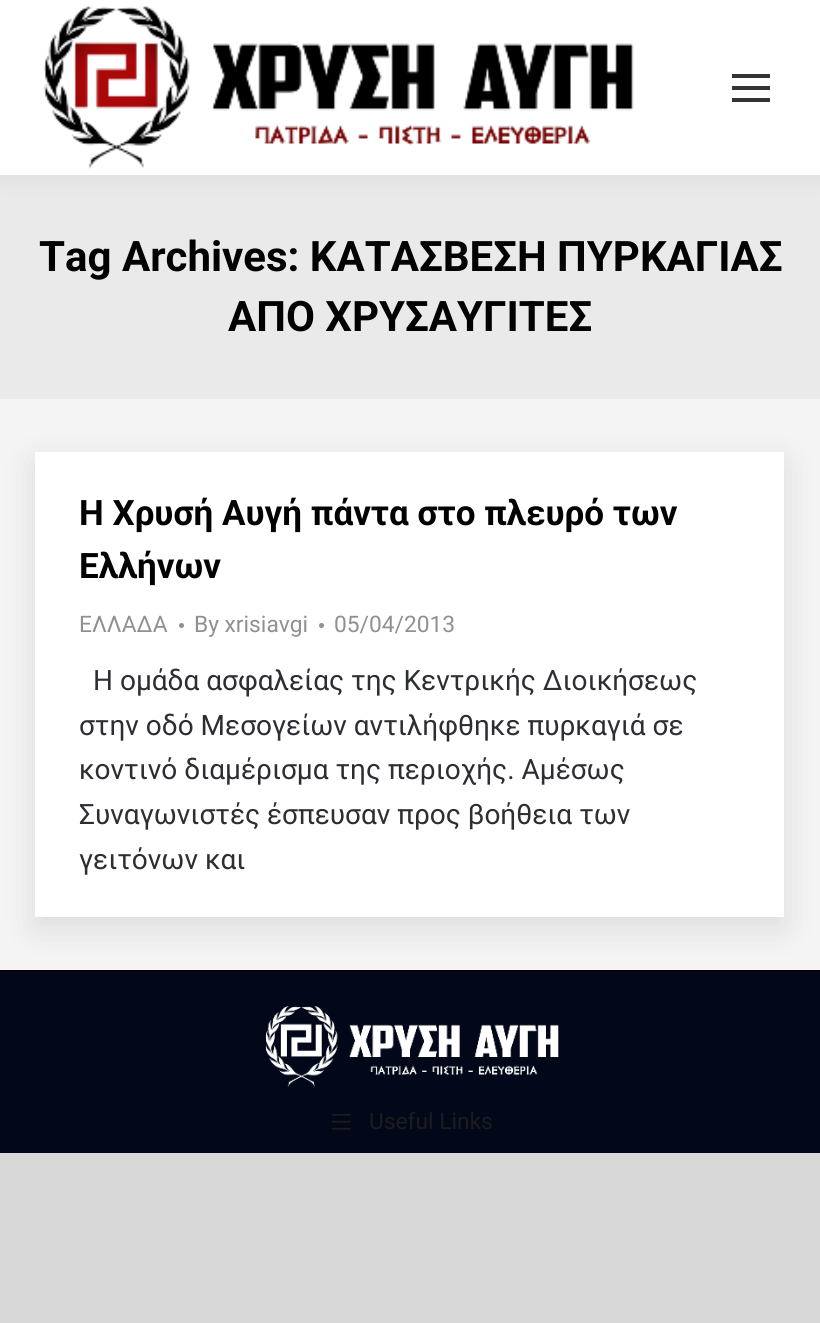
#include <cairo.h>
#include <math.h>
#include <stddef.h>

typedef struct { double x, y; const char *s; } line_t;
typedef struct { double x, y, w, h; unsigned color; } box_t;

static void ink(cairo_t *ctx, unsigned color) {
    cairo_set_source_rgb(ctx, (color >> 16) / 255.0, (color >> 8 & 255) / 255.0, (color & 255) / 255.0);
}

static void round_path(cairo_t *ctx, double x, double y, double w, double h, double r) {
    cairo_new_sub_path(ctx);
    cairo_arc(ctx, x + w - r, y + h - r, r, 0, M_PI / 2);
    cairo_arc(ctx, x + r, y + h - r, r, M_PI / 2, M_PI);
    cairo_arc(ctx, x + r, y + r, r, M_PI, 1.5 * M_PI);
    cairo_arc(ctx, x + w - r, y + r, r, 1.5 * M_PI, 2 * M_PI);
    cairo_close_path(ctx);
}

static void blur_box(cairo_t *ctx, double x, double y, double w, double h, double r, double blur, double alpha) {
    cairo_push_group_with_content(ctx, CAIRO_CONTENT_ALPHA);
    cairo_set_operator(ctx, CAIRO_OPERATOR_SOURCE);
    for (int i = 15; i >= -15 && fmin(w, h) + blur * i / 3 > 0; i -= 2) {
        double e = blur * i / 6;
        cairo_set_source_rgba(ctx, 0, 0, 0, alpha * erfc((i - 1) / 8.5) / 2);
        round_path(ctx, x - e, y - e, w + 2 * e, h + 2 * e, fmax(0, fmin(r + e + blur * .6, fmin(w, h) / 2 + e)));
        cairo_fill(ctx);
    }
    cairo_pattern_t *soft = cairo_pop_group(ctx);
    cairo_mask(ctx, soft);
    cairo_pattern_destroy(soft);
}

static void paste(cairo_t *ctx, const char *path, double x, double y, double w, double h) {
    cairo_surface_t *image = cairo_image_surface_create_from_png(path);
    cairo_save(ctx);
    cairo_set_source_surface(ctx, image, x, y);
    cairo_rectangle(ctx, x, y, w, h);
    cairo_fill(ctx);
    cairo_restore(ctx);
    cairo_surface_destroy(image);
}

int main(void) {
    cairo_surface_t *surface = cairo_image_surface_create(CAIRO_FORMAT_RGB24, 820, 1323);
    cairo_t *ctx = cairo_create(surface);
    cairo_font_options_t *options = cairo_font_options_create();
    cairo_font_options_set_hint_metrics(options, CAIRO_HINT_METRICS_OFF);
    cairo_font_options_set_hint_style(options, CAIRO_HINT_STYLE_NONE);
    cairo_set_font_options(ctx, options);
    cairo_set_miter_limit(ctx, 4);
    ink(ctx, 0xD8D8D8);
    cairo_paint(ctx);
    ink(ctx, 0xF4F4F4);
    cairo_rectangle(ctx, 0, 399, 820, 571);
    cairo_fill(ctx);
    ink(ctx, 0xEAEAEA);
    cairo_rectangle(ctx, 0, 175, 820, 224);
    cairo_fill(ctx);
    ink(ctx, 0x000000);
    blur_box(ctx, -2, -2, 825, 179, 0, 13, 0.07);
    ink(ctx, 0xFFFFFF);
    cairo_rectangle(ctx, 0, 0, 820, 175);
    cairo_fill(ctx);
    paste(ctx, "media/1.png", 43, 6, 591, 163);
    {
        static const box_t items[] = {
            {732, 74, 38, 4, 0x333333},
            {732, 86, 38, 4, 0x333333},
            {732, 98, 38, 4, 0x333333},
        };
        for (size_t i = 0; i < sizeof items / sizeof *items; i++) {
            ink(ctx, items[i].color);
            cairo_rectangle(ctx, items[i].x, items[i].y, items[i].w, items[i].h);
            cairo_fill(ctx);
        }
    }
    cairo_select_font_face(ctx, "Roboto", CAIRO_FONT_SLANT_NORMAL, CAIRO_FONT_WEIGHT_BOLD);
    cairo_set_font_size(ctx, 42);
    ink(ctx, 0x020202);
    cairo_move_to(ctx, 39, 271);
    cairo_show_text(ctx, "Tag Archives: ΚΑΤΑΣΒΕΣΗ ΠΥΡΚΑΓΙΑΣ");
    cairo_move_to(ctx, 228, 331);
    cairo_show_text(ctx, "ΑΠΟ ΧΡΥΣΑΥΓΙΤΕΣ");
    ink(ctx, 0x020819);
    cairo_rectangle(ctx, 0, 972, 820, 181);
    cairo_fill(ctx);
    ink(ctx, 0x0A0001);
    cairo_rectangle(ctx, 0, 970, 820, 2);
    cairo_fill(ctx);
    ink(ctx, 0x000000);
    blur_box(ctx, 35, 462, 749, 466, 0, 16, 0.1);
    ink(ctx, 0xFFFFFF);
    cairo_rectangle(ctx, 35, 452, 749, 465);
    cairo_fill(ctx);
    cairo_set_font_size(ctx, 35);
    ink(ctx, 0x020202);
    cairo_move_to(ctx, 79, 525);
    cairo_show_text(ctx, "Η Χρυσή Αυγή πάντα στο πλευρό των");
    cairo_move_to(ctx, 79, 578);
    cairo_show_text(ctx, "Ελλήνων");
    cairo_select_font_face(ctx, "Roboto", CAIRO_FONT_SLANT_NORMAL, CAIRO_FONT_WEIGHT_NORMAL);
    cairo_set_font_size(ctx, 22.75);
    ink(ctx, 0x8F9093);
    cairo_move_to(ctx, 79, 632);
    cairo_show_text(ctx, "ΕΛΛΑΔΑ");
    cairo_new_path(ctx);
    cairo_arc(ctx, 181.5, 625.5, 2.5, 0, 2 * M_PI);
    cairo_fill(ctx);
    cairo_move_to(ctx, 194, 632);
    cairo_show_text(ctx, "By xrisiavgi");
    cairo_new_path(ctx);
    cairo_arc(ctx, 321.5, 625.5, 2.5, 0, 2 * M_PI);
    cairo_fill(ctx);
    cairo_move_to(ctx, 334, 632);
    cairo_show_text(ctx, "05/04/2013");
    cairo_set_font_size(ctx, 28);
    ink(ctx, 0x2C2E33);
    {
        static const line_t items[] = {
            {93, 690, "Η ομάδα ασφαλείας της Κεντρικής Διοικήσεως"},
            {79, 735, "στην οδό Μεσογείων αντιλήφθηκε πυρκαγιά σε"},
            {79, 779, "κοντινό διαμέρισμα της περιοχής. Αμέσως"},
            {79, 824, "Συναγωνιστές έσπευσαν προς βοήθεια των"},
            {79, 869, "γειτόνων και"},
        };
        for (size_t i = 0; i < sizeof items / sizeof *items; i++) {
            cairo_move_to(ctx, items[i].x, items[i].y);
            cairo_show_text(ctx, items[i].s);
        }
    }
    paste(ctx, "media/2.png", 265, 1006, 294, 81);
    paste(ctx, "media/3.png", 331, 1114, 20, 16);
    cairo_set_font_size(ctx, 22.75);
    ink(ctx, 0x1C1C1C);
    cairo_move_to(ctx, 369, 1129);
    cairo_show_text(ctx, "Useful Links");
    cairo_surface_write_to_png(surface, "image.png");
    cairo_font_options_destroy(options);
    cairo_destroy(ctx);
    cairo_surface_destroy(surface);
    return 0;
}
